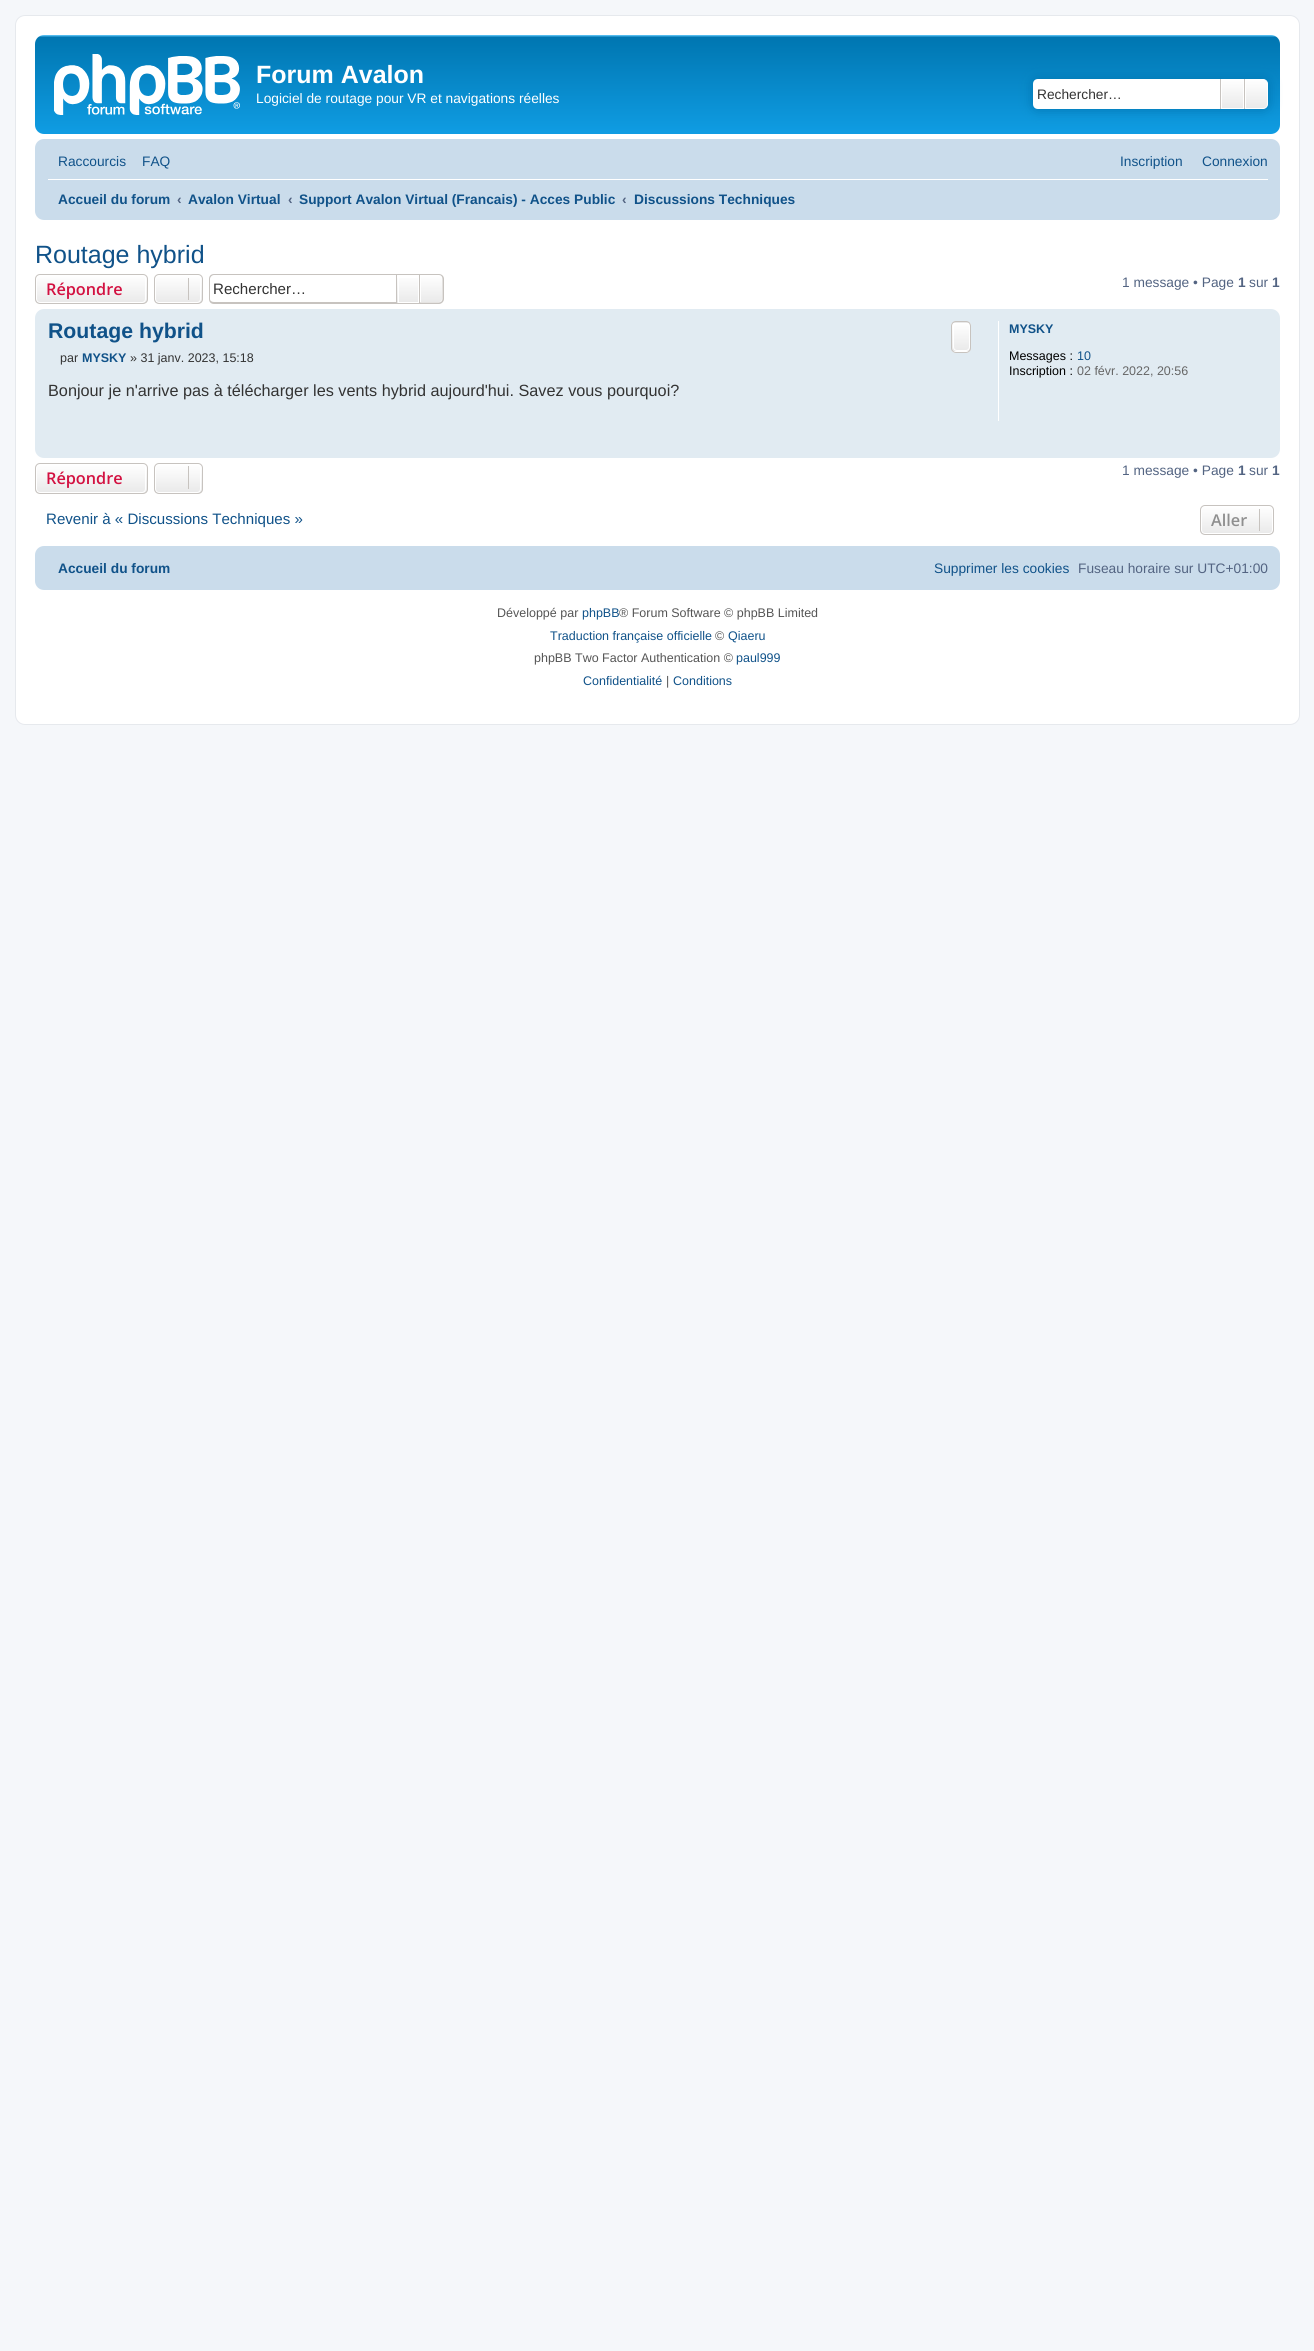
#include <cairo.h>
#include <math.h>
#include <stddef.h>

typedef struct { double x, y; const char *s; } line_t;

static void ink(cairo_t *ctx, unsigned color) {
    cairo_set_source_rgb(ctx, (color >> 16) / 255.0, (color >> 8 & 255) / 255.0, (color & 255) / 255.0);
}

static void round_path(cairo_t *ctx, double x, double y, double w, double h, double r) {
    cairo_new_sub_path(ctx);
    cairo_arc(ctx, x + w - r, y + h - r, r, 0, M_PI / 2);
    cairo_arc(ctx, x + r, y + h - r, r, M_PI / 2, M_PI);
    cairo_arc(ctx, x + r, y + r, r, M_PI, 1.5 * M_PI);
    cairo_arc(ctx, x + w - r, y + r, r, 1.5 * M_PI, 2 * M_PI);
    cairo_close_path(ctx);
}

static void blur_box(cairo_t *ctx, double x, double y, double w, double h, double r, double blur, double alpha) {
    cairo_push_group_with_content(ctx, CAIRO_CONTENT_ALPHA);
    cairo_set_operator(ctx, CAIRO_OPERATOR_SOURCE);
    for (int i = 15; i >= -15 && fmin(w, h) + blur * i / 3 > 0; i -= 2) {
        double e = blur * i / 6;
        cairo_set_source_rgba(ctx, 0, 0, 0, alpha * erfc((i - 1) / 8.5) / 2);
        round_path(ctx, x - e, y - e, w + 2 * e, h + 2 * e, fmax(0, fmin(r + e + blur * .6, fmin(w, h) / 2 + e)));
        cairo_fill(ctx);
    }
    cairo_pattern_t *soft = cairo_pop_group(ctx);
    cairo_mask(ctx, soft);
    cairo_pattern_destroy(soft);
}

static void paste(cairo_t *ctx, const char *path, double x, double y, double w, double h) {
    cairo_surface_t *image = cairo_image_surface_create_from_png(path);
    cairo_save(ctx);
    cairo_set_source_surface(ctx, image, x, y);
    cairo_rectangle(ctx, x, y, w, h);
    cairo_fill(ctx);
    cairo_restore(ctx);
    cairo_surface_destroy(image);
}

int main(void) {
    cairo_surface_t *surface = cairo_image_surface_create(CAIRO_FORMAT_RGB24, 1314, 2351);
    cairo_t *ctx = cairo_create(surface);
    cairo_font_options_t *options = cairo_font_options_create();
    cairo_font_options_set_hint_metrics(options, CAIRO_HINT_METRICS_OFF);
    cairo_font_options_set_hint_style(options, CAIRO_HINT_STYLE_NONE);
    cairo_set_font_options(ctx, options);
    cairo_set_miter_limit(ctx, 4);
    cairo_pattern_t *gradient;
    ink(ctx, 0xF5F7FA);
    cairo_paint(ctx);
    ink(ctx, 0xFFFFFF);
    round_path(ctx, 15.5, 15.5, 1284, 709, 9.5);
    cairo_fill_preserve(ctx);
    ink(ctx, 0xE6E9ED);
    cairo_set_line_width(ctx, 1);
    cairo_stroke(ctx);
    gradient = cairo_pattern_create_linear(658, 35, 658, 150);
    cairo_pattern_add_color_stop_rgba(gradient, 0, 0.416, 0.808, 1, 1);
    cairo_pattern_add_color_stop_rgba(gradient, 0.02, 0, 0.463, 0.694, 1);
    cairo_pattern_add_color_stop_rgba(gradient, 1, 0.071, 0.639, 0.922, 1);
    cairo_set_source(ctx, gradient);
    cairo_pattern_destroy(gradient);
    round_path(ctx, 35, 35, 1245, 99, 9);
    cairo_fill(ctx);
    paste(ctx, "media/1.png", 54, 54, 186, 61);
    cairo_select_font_face(ctx, "Liberation Sans", CAIRO_FONT_SLANT_NORMAL, CAIRO_FONT_WEIGHT_BOLD);
    cairo_set_font_size(ctx, 25);
    ink(ctx, 0xFFFFFF);
    cairo_move_to(ctx, 256, 83);
    cairo_show_text(ctx, "Forum Avalon");
    cairo_select_font_face(ctx, "Liberation Sans", CAIRO_FONT_SLANT_NORMAL, CAIRO_FONT_WEIGHT_NORMAL);
    cairo_set_font_size(ctx, 13.75);
    cairo_move_to(ctx, 256, 103);
    cairo_show_text(ctx, "Logiciel de routage pour VR et navigations réelles");
    ink(ctx, 0x0075B0);
    blur_box(ctx, 1033, 79, 235, 30, 5, 6, 1);
    ink(ctx, 0xFFFFFF);
    cairo_new_path(ctx);
    cairo_move_to(ctx, 1038, 79);
    cairo_line_to(ctx, 1220, 79);
    cairo_line_to(ctx, 1220, 109);
    cairo_line_to(ctx, 1038, 109);
    cairo_curve_to(ctx, 1035, 109, 1033, 107, 1033, 104);
    cairo_line_to(ctx, 1033, 84);
    cairo_curve_to(ctx, 1033, 81, 1035, 79, 1038, 79);
    cairo_close_path(ctx);
    cairo_fill(ctx);
    ink(ctx, 0x333333);
    cairo_move_to(ctx, 1037, 99);
    cairo_show_text(ctx, "Rechercher…");
    gradient = cairo_pattern_create_linear(1233, 79, 1233, 109);
    cairo_pattern_add_color_stop_rgba(gradient, 0, 1, 1, 1, 1);
    cairo_pattern_add_color_stop_rgba(gradient, 1, 0.914, 0.914, 0.914, 1);
    cairo_set_source(ctx, gradient);
    cairo_pattern_destroy(gradient);
    cairo_rectangle(ctx, 1222, 80, 21, 28);
    cairo_fill(ctx);
    cairo_rectangle(ctx, 1221.5, 79.5, 22, 29);
    ink(ctx, 0xFFFFFF);
    cairo_stroke(ctx);
    ink(ctx, 0xC7C3BF);
    cairo_rectangle(ctx, 1244, 79, 1, 30);
    cairo_fill(ctx);
    cairo_rectangle(ctx, 1220, 79, 1, 30);
    cairo_fill(ctx);
    gradient = cairo_pattern_create_linear(1256, 79, 1256, 109);
    cairo_pattern_add_color_stop_rgba(gradient, 0, 1, 1, 1, 1);
    cairo_pattern_add_color_stop_rgba(gradient, 1, 0.914, 0.914, 0.914, 1);
    cairo_set_source(ctx, gradient);
    cairo_pattern_destroy(gradient);
    cairo_new_path(ctx);
    cairo_move_to(ctx, 1245.5, 79.5);
    cairo_line_to(ctx, 1263, 79.5);
    cairo_curve_to(ctx, 1265.5, 79.5, 1267.5, 81.5, 1267.5, 84);
    cairo_line_to(ctx, 1267.5, 104);
    cairo_curve_to(ctx, 1267.5, 106.5, 1265.5, 108.5, 1263, 108.5);
    cairo_line_to(ctx, 1245.5, 108.5);
    cairo_close_path(ctx);
    cairo_fill_preserve(ctx);
    ink(ctx, 0xFFFFFF);
    cairo_stroke(ctx);
    ink(ctx, 0xCADCEB);
    round_path(ctx, 35, 139, 1245, 81, 9);
    cairo_fill(ctx);
    ink(ctx, 0x105289);
    {
        static const line_t items[] = {
            {58, 166, "Raccourcis"},
            {142, 166, "FAQ"},
            {1120, 166, "Inscription"},
            {1202, 166, "Connexion"},
        };
        for (size_t i = 0; i < sizeof items / sizeof *items; i++) {
            cairo_move_to(ctx, items[i].x, items[i].y);
            cairo_show_text(ctx, items[i].s);
        }
    }
    ink(ctx, 0xFFFFFF);
    cairo_rectangle(ctx, 48, 179, 1220, 1);
    cairo_fill(ctx);
    cairo_select_font_face(ctx, "Liberation Sans", CAIRO_FONT_SLANT_NORMAL, CAIRO_FONT_WEIGHT_BOLD);
    ink(ctx, 0x105289);
    cairo_move_to(ctx, 58, 204);
    cairo_show_text(ctx, "Accueil du forum");
    ink(ctx, 0x536482);
    cairo_move_to(ctx, 177, 204);
    cairo_show_text(ctx, "‹");
    ink(ctx, 0x105289);
    cairo_move_to(ctx, 188, 204);
    cairo_show_text(ctx, "Avalon Virtual");
    ink(ctx, 0x536482);
    cairo_move_to(ctx, 288, 204);
    cairo_show_text(ctx, "‹");
    ink(ctx, 0x105289);
    cairo_move_to(ctx, 299, 204);
    cairo_show_text(ctx, "Support Avalon Virtual (Francais) - Acces Public");
    ink(ctx, 0x536482);
    cairo_move_to(ctx, 622, 204);
    cairo_show_text(ctx, "‹");
    ink(ctx, 0x105289);
    cairo_move_to(ctx, 634, 204);
    cairo_show_text(ctx, "Discussions Techniques");
    cairo_select_font_face(ctx, "Liberation Sans", CAIRO_FONT_SLANT_NORMAL, CAIRO_FONT_WEIGHT_NORMAL);
    cairo_set_font_size(ctx, 25);
    cairo_move_to(ctx, 35, 263);
    cairo_show_text(ctx, "Routage hybrid");
    cairo_save(ctx);
    round_path(ctx, 35, 274, 113, 30, 5);
    cairo_clip(ctx);
    gradient = cairo_pattern_create_linear(91, 275, 91, 303);
    cairo_pattern_add_color_stop_rgba(gradient, 0, 1, 1, 1, 1);
    cairo_pattern_add_color_stop_rgba(gradient, 1, 0.914, 0.914, 0.914, 1);
    cairo_set_source(ctx, gradient);
    cairo_pattern_destroy(gradient);
    cairo_rectangle(ctx, 35, 275, 113, 28);
    cairo_fill(ctx);
    cairo_restore(ctx);
    round_path(ctx, 36.5, 275.5, 109, 27, 3.5);
    ink(ctx, 0xFFFFFF);
    cairo_stroke(ctx);
    round_path(ctx, 35.5, 274.5, 112, 29, 4.5);
    ink(ctx, 0xC7C3BF);
    cairo_stroke(ctx);
    cairo_select_font_face(ctx, "Open Sans SemiBold", CAIRO_FONT_SLANT_NORMAL, CAIRO_FONT_WEIGHT_NORMAL);
    cairo_set_font_size(ctx, 16.25);
    ink(ctx, 0xD31141);
    cairo_move_to(ctx, 46, 295);
    cairo_show_text(ctx, "Répondre");
    cairo_save(ctx);
    round_path(ctx, 154, 274, 49, 30, 5);
    cairo_clip(ctx);
    gradient = cairo_pattern_create_linear(178, 275, 178, 303);
    cairo_pattern_add_color_stop_rgba(gradient, 0, 1, 1, 1, 1);
    cairo_pattern_add_color_stop_rgba(gradient, 1, 0.914, 0.914, 0.914, 1);
    cairo_set_source(ctx, gradient);
    cairo_pattern_destroy(gradient);
    cairo_rectangle(ctx, 154, 275, 49, 28);
    cairo_fill(ctx);
    cairo_restore(ctx);
    round_path(ctx, 155.5, 275.5, 45, 27, 3.5);
    ink(ctx, 0xFFFFFF);
    cairo_stroke(ctx);
    round_path(ctx, 154.5, 274.5, 48, 29, 4.5);
    ink(ctx, 0xC7C3BF);
    cairo_stroke(ctx);
    cairo_rectangle(ctx, 188, 278, 1, 22);
    cairo_fill(ctx);
    cairo_set_fill_rule(ctx, CAIRO_FILL_RULE_EVEN_ODD);
    cairo_new_path(ctx);
    cairo_move_to(ctx, 214, 274);
    cairo_line_to(ctx, 396, 274);
    cairo_line_to(ctx, 396, 304);
    cairo_line_to(ctx, 214, 304);
    cairo_curve_to(ctx, 211, 304, 209, 302, 209, 299);
    cairo_line_to(ctx, 209, 279);
    cairo_curve_to(ctx, 209, 276, 211, 274, 214, 274);
    cairo_close_path(ctx);
    cairo_move_to(ctx, 214, 275);
    cairo_line_to(ctx, 396, 275);
    cairo_line_to(ctx, 396, 302);
    cairo_line_to(ctx, 214, 302);
    cairo_curve_to(ctx, 212, 302, 210, 301, 210, 299);
    cairo_line_to(ctx, 210, 279);
    cairo_curve_to(ctx, 210, 277, 212, 275, 214, 275);
    cairo_close_path(ctx);
    cairo_fill(ctx);
    cairo_select_font_face(ctx, "Liberation Sans", CAIRO_FONT_SLANT_NORMAL, CAIRO_FONT_WEIGHT_NORMAL);
    cairo_set_font_size(ctx, 15.1);
    ink(ctx, 0x333333);
    cairo_move_to(ctx, 213, 294);
    cairo_show_text(ctx, "Rechercher…");
    gradient = cairo_pattern_create_linear(408, 275, 408, 303);
    cairo_pattern_add_color_stop_rgba(gradient, 0, 1, 1, 1, 1);
    cairo_pattern_add_color_stop_rgba(gradient, 1, 0.914, 0.914, 0.914, 1);
    cairo_set_source(ctx, gradient);
    cairo_pattern_destroy(gradient);
    cairo_rectangle(ctx, 397, 278, 21, 25);
    cairo_fill(ctx);
    cairo_rectangle(ctx, 398.5, 275.5, 20, 27);
    ink(ctx, 0xFFFFFF);
    cairo_stroke(ctx);
    cairo_rectangle(ctx, 396.5, 274.5, 23, 29);
    ink(ctx, 0xC7C3BF);
    cairo_stroke(ctx);
    gradient = cairo_pattern_create_linear(431, 275, 431, 303);
    cairo_pattern_add_color_stop_rgba(gradient, 0, 1, 1, 1, 1);
    cairo_pattern_add_color_stop_rgba(gradient, 1, 0.914, 0.914, 0.914, 1);
    cairo_set_source(ctx, gradient);
    cairo_pattern_destroy(gradient);
    cairo_new_path(ctx);
    cairo_move_to(ctx, 420.5, 275.5);
    cairo_line_to(ctx, 439, 275.5);
    cairo_curve_to(ctx, 441, 275.5, 442.5, 277, 442.5, 279);
    cairo_line_to(ctx, 442.5, 299);
    cairo_curve_to(ctx, 442.5, 301, 441, 302.5, 439, 302.5);
    cairo_line_to(ctx, 420.5, 302.5);
    cairo_close_path(ctx);
    cairo_fill_preserve(ctx);
    ink(ctx, 0xFFFFFF);
    cairo_stroke(ctx);
    ink(ctx, 0xC7C3BF);
    cairo_new_path(ctx);
    cairo_move_to(ctx, 420, 274);
    cairo_line_to(ctx, 439, 274);
    cairo_curve_to(ctx, 441.5, 274, 444, 276, 444, 279);
    cairo_line_to(ctx, 444, 299);
    cairo_curve_to(ctx, 444, 301.5, 441.5, 304, 439, 304);
    cairo_line_to(ctx, 420, 304);
    cairo_close_path(ctx);
    cairo_move_to(ctx, 420, 275);
    cairo_line_to(ctx, 439, 275);
    cairo_curve_to(ctx, 441, 275, 442.5, 276.5, 442.5, 279);
    cairo_line_to(ctx, 442.5, 299);
    cairo_curve_to(ctx, 442.5, 301, 441, 302.5, 439, 302.5);
    cairo_line_to(ctx, 420, 302.5);
    cairo_close_path(ctx);
    cairo_fill(ctx);
    cairo_set_font_size(ctx, 13.75);
    ink(ctx, 0x536482);
    cairo_move_to(ctx, 1122, 287);
    cairo_show_text(ctx, "1 message • Page");
    cairo_select_font_face(ctx, "Liberation Sans", CAIRO_FONT_SLANT_NORMAL, CAIRO_FONT_WEIGHT_BOLD);
    cairo_move_to(ctx, 1238, 287);
    cairo_show_text(ctx, "1");
    cairo_select_font_face(ctx, "Liberation Sans", CAIRO_FONT_SLANT_NORMAL, CAIRO_FONT_WEIGHT_NORMAL);
    cairo_move_to(ctx, 1249, 287);
    cairo_show_text(ctx, "sur");
    cairo_select_font_face(ctx, "Liberation Sans", CAIRO_FONT_SLANT_NORMAL, CAIRO_FONT_WEIGHT_BOLD);
    cairo_move_to(ctx, 1272, 287);
    cairo_show_text(ctx, "1");
    ink(ctx, 0xE1EBF2);
    round_path(ctx, 35, 309, 1245, 149, 9);
    cairo_fill(ctx);
    cairo_set_font_size(ctx, 21.25);
    ink(ctx, 0x105289);
    cairo_move_to(ctx, 48, 338);
    cairo_show_text(ctx, "Routage hybrid");
    cairo_save(ctx);
    cairo_set_fill_rule(ctx, CAIRO_FILL_RULE_WINDING);
    round_path(ctx, 951, 321, 20, 32, 5);
    cairo_clip(ctx);
    gradient = cairo_pattern_create_linear(961, 294, 961, 323);
    cairo_pattern_add_color_stop_rgba(gradient, 0, 1, 1, 1, 1);
    cairo_pattern_add_color_stop_rgba(gradient, 1, 0.914, 0.914, 0.914, 1);
    cairo_set_source(ctx, gradient);
    cairo_pattern_destroy(gradient);
    cairo_rectangle(ctx, 951, 321, 20, 2);
    cairo_fill(ctx);
    gradient = cairo_pattern_create_linear(961, 323, 961, 351);
    cairo_pattern_add_color_stop_rgba(gradient, 0, 1, 1, 1, 1);
    cairo_pattern_add_color_stop_rgba(gradient, 1, 0.914, 0.914, 0.914, 1);
    cairo_set_source(ctx, gradient);
    cairo_pattern_destroy(gradient);
    cairo_rectangle(ctx, 951, 323, 20, 28);
    cairo_fill(ctx);
    gradient = cairo_pattern_create_linear(961, 351, 961, 380);
    cairo_pattern_add_color_stop_rgba(gradient, 0, 1, 1, 1, 1);
    cairo_pattern_add_color_stop_rgba(gradient, 1, 0.914, 0.914, 0.914, 1);
    cairo_set_source(ctx, gradient);
    cairo_pattern_destroy(gradient);
    cairo_rectangle(ctx, 951, 351, 20, 2);
    cairo_fill(ctx);
    cairo_restore(ctx);
    round_path(ctx, 953.5, 323.5, 16, 27, 3.5);
    ink(ctx, 0xFFFFFF);
    cairo_stroke(ctx);
    round_path(ctx, 951.5, 321.5, 19, 31, 4.5);
    ink(ctx, 0xC7C3BF);
    cairo_stroke(ctx);
    cairo_select_font_face(ctx, "Liberation Sans", CAIRO_FONT_SLANT_NORMAL, CAIRO_FONT_WEIGHT_NORMAL);
    cairo_set_font_size(ctx, 12.5);
    ink(ctx, 0x333333);
    cairo_move_to(ctx, 60, 362);
    cairo_show_text(ctx, "par");
    cairo_select_font_face(ctx, "Liberation Sans", CAIRO_FONT_SLANT_NORMAL, CAIRO_FONT_WEIGHT_BOLD);
    ink(ctx, 0x105289);
    cairo_move_to(ctx, 82, 362);
    cairo_show_text(ctx, "MYSKY");
    cairo_select_font_face(ctx, "Liberation Sans", CAIRO_FONT_SLANT_NORMAL, CAIRO_FONT_WEIGHT_NORMAL);
    ink(ctx, 0x333333);
    cairo_move_to(ctx, 130, 362);
    cairo_show_text(ctx, "» 31 janv. 2023, 15:18");
    cairo_set_font_size(ctx, 16.25);
    cairo_move_to(ctx, 48, 396);
    cairo_show_text(ctx, "Bonjour je n'arrive pas à télécharger les vents hybrid aujourd'hui. Savez vous pourquoi?");
    ink(ctx, 0xFFFFFF);
    cairo_rectangle(ctx, 998, 321, 1, 100);
    cairo_fill(ctx);
    cairo_select_font_face(ctx, "Liberation Sans", CAIRO_FONT_SLANT_NORMAL, CAIRO_FONT_WEIGHT_BOLD);
    cairo_set_font_size(ctx, 12.5);
    ink(ctx, 0x105289);
    cairo_move_to(ctx, 1009, 333);
    cairo_show_text(ctx, "MYSKY");
    cairo_select_font_face(ctx, "Liberation Sans", CAIRO_FONT_SLANT_NORMAL, CAIRO_FONT_WEIGHT_NORMAL);
    ink(ctx, 0x000000);
    cairo_move_to(ctx, 1009, 360);
    cairo_show_text(ctx, "Messages :");
    ink(ctx, 0x105289);
    cairo_move_to(ctx, 1077, 360);
    cairo_show_text(ctx, "10");
    ink(ctx, 0x000000);
    cairo_move_to(ctx, 1009, 375);
    cairo_show_text(ctx, "Inscription :");
    ink(ctx, 0x666666);
    cairo_move_to(ctx, 1077, 375);
    cairo_show_text(ctx, "02 févr. 2022, 20:56");
    cairo_save(ctx);
    cairo_set_fill_rule(ctx, CAIRO_FILL_RULE_WINDING);
    round_path(ctx, 35, 463, 113, 31, 5);
    cairo_clip(ctx);
    gradient = cairo_pattern_create_linear(91, 464, 91, 493);
    cairo_pattern_add_color_stop_rgba(gradient, 0, 1, 1, 1, 1);
    cairo_pattern_add_color_stop_rgba(gradient, 1, 0.914, 0.914, 0.914, 1);
    cairo_set_source(ctx, gradient);
    cairo_pattern_destroy(gradient);
    cairo_rectangle(ctx, 35, 464, 113, 29);
    cairo_fill(ctx);
    cairo_restore(ctx);
    round_path(ctx, 36.5, 464.5, 109, 28, 3.5);
    ink(ctx, 0xFFFFFF);
    cairo_stroke(ctx);
    round_path(ctx, 35.5, 463.5, 112, 30, 4.5);
    ink(ctx, 0xC7C3BF);
    cairo_stroke(ctx);
    cairo_select_font_face(ctx, "Open Sans SemiBold", CAIRO_FONT_SLANT_NORMAL, CAIRO_FONT_WEIGHT_NORMAL);
    cairo_set_font_size(ctx, 16.25);
    ink(ctx, 0xD31141);
    cairo_move_to(ctx, 46, 484);
    cairo_show_text(ctx, "Répondre");
    cairo_save(ctx);
    cairo_set_fill_rule(ctx, CAIRO_FILL_RULE_WINDING);
    round_path(ctx, 154, 463, 49, 31, 5);
    cairo_clip(ctx);
    gradient = cairo_pattern_create_linear(178, 464, 178, 493);
    cairo_pattern_add_color_stop_rgba(gradient, 0, 1, 1, 1, 1);
    cairo_pattern_add_color_stop_rgba(gradient, 1, 0.914, 0.914, 0.914, 1);
    cairo_set_source(ctx, gradient);
    cairo_pattern_destroy(gradient);
    cairo_rectangle(ctx, 154, 464, 49, 29);
    cairo_fill(ctx);
    cairo_restore(ctx);
    round_path(ctx, 155.5, 464.5, 45, 28, 3.5);
    ink(ctx, 0xFFFFFF);
    cairo_stroke(ctx);
    round_path(ctx, 154.5, 463.5, 48, 30, 4.5);
    ink(ctx, 0xC7C3BF);
    cairo_stroke(ctx);
    cairo_rectangle(ctx, 188, 466, 1, 23);
    cairo_fill(ctx);
    cairo_select_font_face(ctx, "Liberation Sans", CAIRO_FONT_SLANT_NORMAL, CAIRO_FONT_WEIGHT_NORMAL);
    cairo_set_font_size(ctx, 13.75);
    ink(ctx, 0x536482);
    cairo_move_to(ctx, 1122, 475);
    cairo_show_text(ctx, "1 message • Page");
    cairo_select_font_face(ctx, "Liberation Sans", CAIRO_FONT_SLANT_NORMAL, CAIRO_FONT_WEIGHT_BOLD);
    cairo_move_to(ctx, 1238, 475);
    cairo_show_text(ctx, "1");
    cairo_select_font_face(ctx, "Liberation Sans", CAIRO_FONT_SLANT_NORMAL, CAIRO_FONT_WEIGHT_NORMAL);
    cairo_move_to(ctx, 1249, 475);
    cairo_show_text(ctx, "sur");
    cairo_select_font_face(ctx, "Liberation Sans", CAIRO_FONT_SLANT_NORMAL, CAIRO_FONT_WEIGHT_BOLD);
    cairo_move_to(ctx, 1272, 475);
    cairo_show_text(ctx, "1");
    cairo_select_font_face(ctx, "Liberation Sans", CAIRO_FONT_SLANT_NORMAL, CAIRO_FONT_WEIGHT_NORMAL);
    cairo_set_font_size(ctx, 15.1);
    ink(ctx, 0x105289);
    cairo_move_to(ctx, 46, 524);
    cairo_show_text(ctx, "Revenir à « Discussions Techniques »");
    cairo_save(ctx);
    cairo_set_fill_rule(ctx, CAIRO_FILL_RULE_WINDING);
    round_path(ctx, 1200, 505, 74, 30, 5);
    cairo_clip(ctx);
    gradient = cairo_pattern_create_linear(1237, 506, 1237, 534);
    cairo_pattern_add_color_stop_rgba(gradient, 0, 1, 1, 1, 1);
    cairo_pattern_add_color_stop_rgba(gradient, 1, 0.914, 0.914, 0.914, 1);
    cairo_set_source(ctx, gradient);
    cairo_pattern_destroy(gradient);
    cairo_rectangle(ctx, 1200, 506, 74, 28);
    cairo_fill(ctx);
    cairo_restore(ctx);
    round_path(ctx, 1201.5, 506.5, 71, 27, 3.5);
    ink(ctx, 0xFFFFFF);
    cairo_stroke(ctx);
    round_path(ctx, 1200.5, 505.5, 73, 29, 4.5);
    ink(ctx, 0xC7C3BF);
    cairo_stroke(ctx);
    cairo_select_font_face(ctx, "Open Sans SemiBold", CAIRO_FONT_SLANT_NORMAL, CAIRO_FONT_WEIGHT_NORMAL);
    cairo_set_font_size(ctx, 16.25);
    ink(ctx, 0x8F8F8F);
    cairo_move_to(ctx, 1211, 526);
    cairo_show_text(ctx, "Aller");
    ink(ctx, 0xC7C3BF);
    cairo_rectangle(ctx, 1259, 509, 1, 22);
    cairo_fill(ctx);
    ink(ctx, 0xCADCEB);
    round_path(ctx, 35, 546, 1245, 44, 9);
    cairo_fill(ctx);
    cairo_select_font_face(ctx, "Liberation Sans", CAIRO_FONT_SLANT_NORMAL, CAIRO_FONT_WEIGHT_BOLD);
    cairo_set_font_size(ctx, 13.75);
    ink(ctx, 0x105289);
    cairo_move_to(ctx, 58, 573);
    cairo_show_text(ctx, "Accueil du forum");
    cairo_select_font_face(ctx, "Liberation Sans", CAIRO_FONT_SLANT_NORMAL, CAIRO_FONT_WEIGHT_NORMAL);
    cairo_move_to(ctx, 934, 573);
    cairo_show_text(ctx, "Supprimer les cookies");
    ink(ctx, 0x536482);
    cairo_move_to(ctx, 1078, 573);
    cairo_show_text(ctx, "Fuseau horaire sur UTC+01:00");
    cairo_set_font_size(ctx, 12.5);
    ink(ctx, 0x555555);
    cairo_move_to(ctx, 497, 617);
    cairo_show_text(ctx, "Développé par");
    ink(ctx, 0x105289);
    cairo_move_to(ctx, 582, 617);
    cairo_show_text(ctx, "phpBB");
    ink(ctx, 0x555555);
    cairo_move_to(ctx, 619, 617);
    cairo_show_text(ctx, "® Forum Software © phpBB Limited");
    ink(ctx, 0x105289);
    cairo_move_to(ctx, 550, 640);
    cairo_show_text(ctx, "Traduction française officielle");
    ink(ctx, 0x555555);
    cairo_move_to(ctx, 715, 640);
    cairo_show_text(ctx, "©");
    ink(ctx, 0x105289);
    cairo_move_to(ctx, 728, 640);
    cairo_show_text(ctx, "Qiaeru");
    ink(ctx, 0x555555);
    cairo_move_to(ctx, 534, 662);
    cairo_show_text(ctx, "phpBB Two Factor Authentication ©");
    ink(ctx, 0x105289);
    cairo_move_to(ctx, 736, 662);
    cairo_show_text(ctx, "paul999");
    cairo_move_to(ctx, 583, 685);
    cairo_show_text(ctx, "Confidentialité");
    ink(ctx, 0x555555);
    cairo_move_to(ctx, 666, 685);
    cairo_show_text(ctx, "|");
    ink(ctx, 0x105289);
    cairo_move_to(ctx, 673, 685);
    cairo_show_text(ctx, "Conditions");
    cairo_surface_write_to_png(surface, "image.png");
    cairo_font_options_destroy(options);
    cairo_destroy(ctx);
    cairo_surface_destroy(surface);
    return 0;
}
